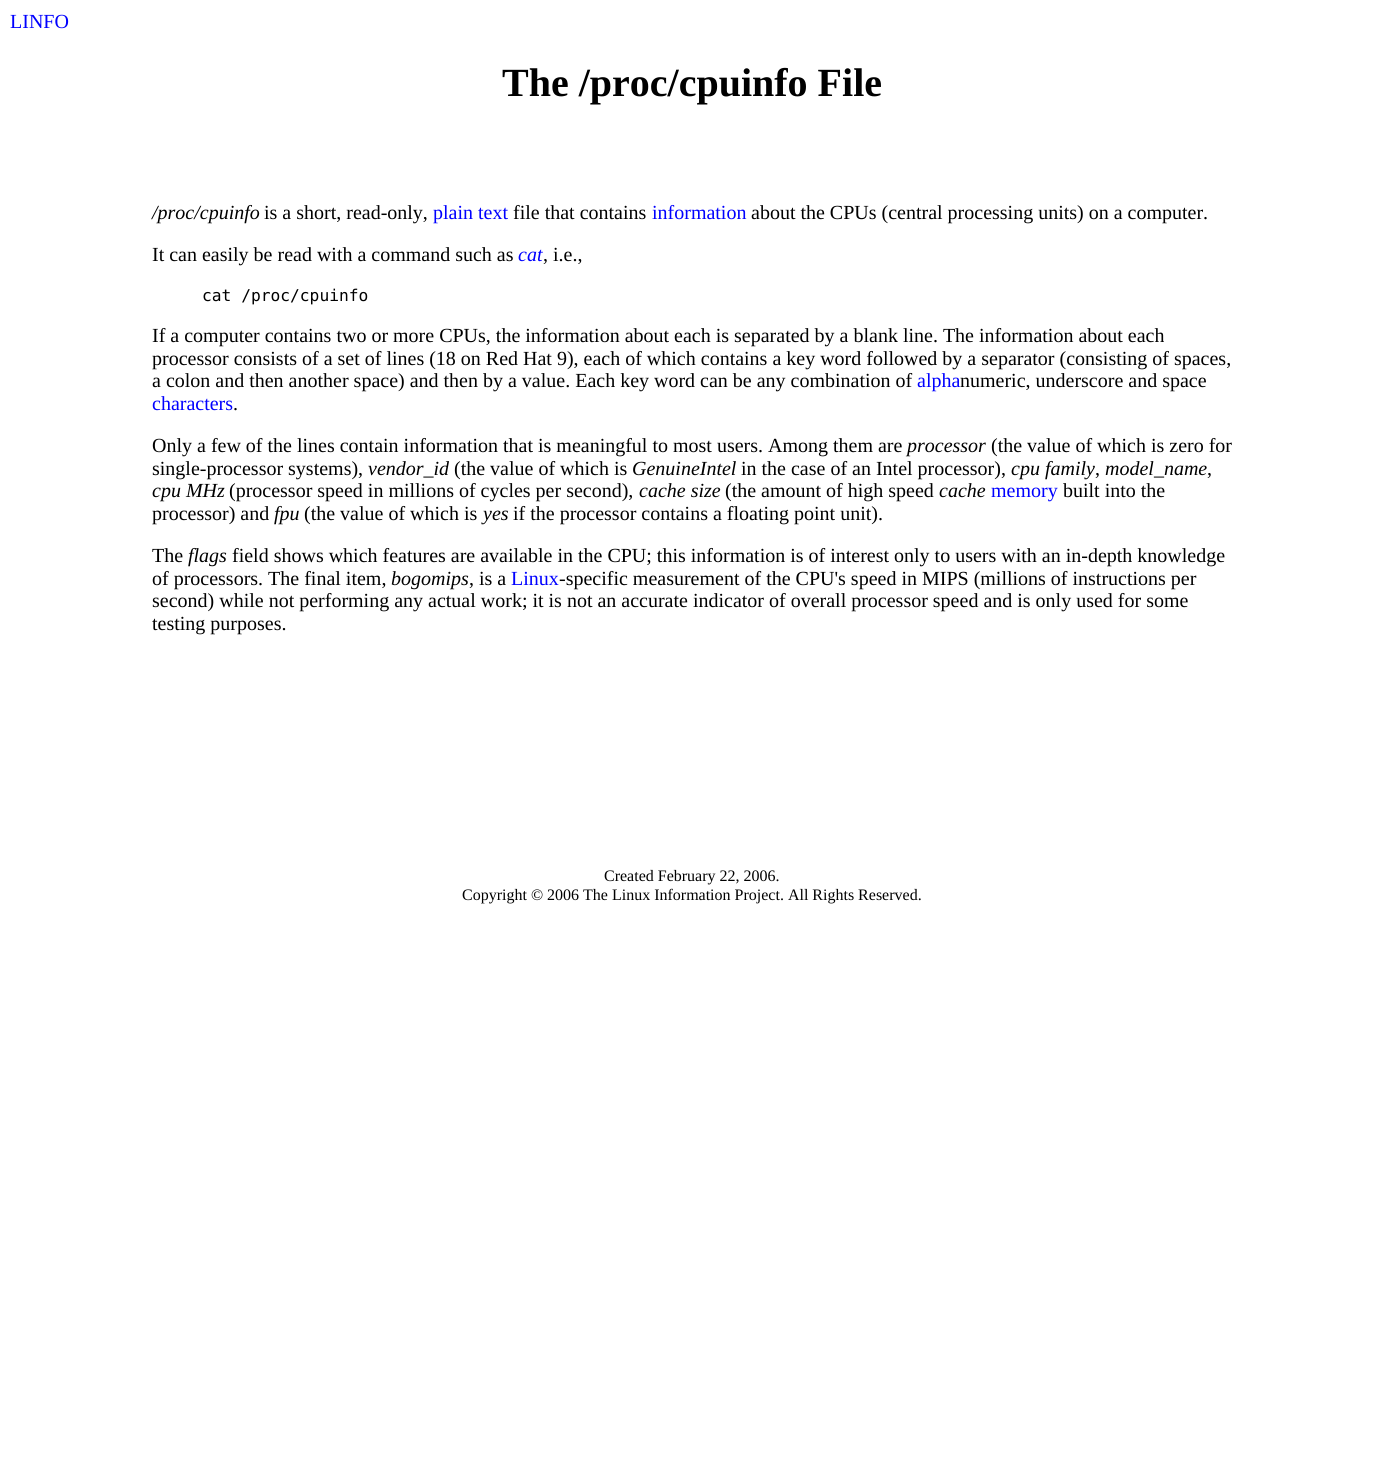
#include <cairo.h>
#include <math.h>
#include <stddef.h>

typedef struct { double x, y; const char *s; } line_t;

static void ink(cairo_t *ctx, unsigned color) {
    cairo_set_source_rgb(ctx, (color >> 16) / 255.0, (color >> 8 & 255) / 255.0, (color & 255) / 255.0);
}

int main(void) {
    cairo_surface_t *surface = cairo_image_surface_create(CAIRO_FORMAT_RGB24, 1383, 1476);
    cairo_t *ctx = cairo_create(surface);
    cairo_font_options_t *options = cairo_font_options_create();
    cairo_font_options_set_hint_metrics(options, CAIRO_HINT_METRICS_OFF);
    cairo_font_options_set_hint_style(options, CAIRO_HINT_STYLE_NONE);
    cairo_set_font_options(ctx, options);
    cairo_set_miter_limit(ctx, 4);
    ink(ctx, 0xFFFFFF);
    cairo_paint(ctx);
    cairo_select_font_face(ctx, "Liberation Serif", CAIRO_FONT_SLANT_NORMAL, CAIRO_FONT_WEIGHT_NORMAL);
    cairo_set_font_size(ctx, 20);
    ink(ctx, 0x0000FF);
    cairo_move_to(ctx, 10, 28);
    cairo_show_text(ctx, "LINFO");
    cairo_select_font_face(ctx, "Liberation Serif", CAIRO_FONT_SLANT_NORMAL, CAIRO_FONT_WEIGHT_BOLD);
    cairo_set_font_size(ctx, 40);
    ink(ctx, 0x000000);
    cairo_move_to(ctx, 502, 96);
    cairo_show_text(ctx, "The /proc/cpuinfo File");
    cairo_select_font_face(ctx, "Liberation Serif", CAIRO_FONT_SLANT_ITALIC, CAIRO_FONT_WEIGHT_NORMAL);
    cairo_set_font_size(ctx, 20);
    cairo_move_to(ctx, 152, 219);
    cairo_show_text(ctx, "/proc/cpuinfo");
    cairo_select_font_face(ctx, "Liberation Serif", CAIRO_FONT_SLANT_NORMAL, CAIRO_FONT_WEIGHT_NORMAL);
    cairo_move_to(ctx, 264, 219);
    cairo_show_text(ctx, "is a short, read-only,");
    ink(ctx, 0x0000FF);
    cairo_move_to(ctx, 433, 219);
    cairo_show_text(ctx, "plain text");
    ink(ctx, 0x000000);
    cairo_move_to(ctx, 513, 219);
    cairo_show_text(ctx, "file that contains");
    ink(ctx, 0x0000FF);
    cairo_move_to(ctx, 652, 219);
    cairo_show_text(ctx, "information");
    ink(ctx, 0x000000);
    cairo_move_to(ctx, 751, 219);
    cairo_show_text(ctx, "about the CPUs (central processing units) on a computer.");
    cairo_move_to(ctx, 152, 261);
    cairo_show_text(ctx, "It can easily be read with a command such as");
    cairo_select_font_face(ctx, "Liberation Serif", CAIRO_FONT_SLANT_ITALIC, CAIRO_FONT_WEIGHT_NORMAL);
    ink(ctx, 0x0000FF);
    cairo_move_to(ctx, 518, 261);
    cairo_show_text(ctx, "cat");
    cairo_select_font_face(ctx, "Liberation Serif", CAIRO_FONT_SLANT_NORMAL, CAIRO_FONT_WEIGHT_NORMAL);
    ink(ctx, 0x000000);
    cairo_move_to(ctx, 543, 261);
    cairo_show_text(ctx, ", i.e.,");
    cairo_select_font_face(ctx, "DejaVu Sans Mono", CAIRO_FONT_SLANT_NORMAL, CAIRO_FONT_WEIGHT_NORMAL);
    cairo_set_font_size(ctx, 16.25);
    cairo_move_to(ctx, 202, 301);
    cairo_show_text(ctx, "cat /proc/cpuinfo");
    cairo_select_font_face(ctx, "Liberation Serif", CAIRO_FONT_SLANT_NORMAL, CAIRO_FONT_WEIGHT_NORMAL);
    cairo_set_font_size(ctx, 20);
    {
        static const line_t items[] = {
            {152, 342, "If a computer contains two or more CPUs, the information about each is separated by a blank line. The information about each"},
            {152, 365, "processor consists of a set of lines (18 on Red Hat 9), each of which contains a key word followed by a separator (consisting of spaces,"},
            {152, 387, "a colon and then another space) and then by a value. Each key word can be any combination of"},
        };
        for (size_t i = 0; i < sizeof items / sizeof *items; i++) {
            cairo_move_to(ctx, items[i].x, items[i].y);
            cairo_show_text(ctx, items[i].s);
        }
    }
    ink(ctx, 0x0000FF);
    cairo_move_to(ctx, 917, 387);
    cairo_show_text(ctx, "alpha");
    ink(ctx, 0x000000);
    cairo_move_to(ctx, 960, 387);
    cairo_show_text(ctx, "numeric, underscore and space");
    ink(ctx, 0x0000FF);
    cairo_move_to(ctx, 152, 410);
    cairo_show_text(ctx, "characters");
    ink(ctx, 0x000000);
    cairo_move_to(ctx, 233, 410);
    cairo_show_text(ctx, ".");
    cairo_move_to(ctx, 152, 452);
    cairo_show_text(ctx, "Only a few of the lines contain information that is meaningful to most users. Among them are");
    cairo_select_font_face(ctx, "Liberation Serif", CAIRO_FONT_SLANT_ITALIC, CAIRO_FONT_WEIGHT_NORMAL);
    cairo_move_to(ctx, 907, 452);
    cairo_show_text(ctx, "processor");
    cairo_select_font_face(ctx, "Liberation Serif", CAIRO_FONT_SLANT_NORMAL, CAIRO_FONT_WEIGHT_NORMAL);
    cairo_move_to(ctx, 991, 452);
    cairo_show_text(ctx, "(the value of which is zero for");
    cairo_move_to(ctx, 152, 475);
    cairo_show_text(ctx, "single-processor systems),");
    cairo_select_font_face(ctx, "Liberation Serif", CAIRO_FONT_SLANT_ITALIC, CAIRO_FONT_WEIGHT_NORMAL);
    cairo_move_to(ctx, 368, 475);
    cairo_show_text(ctx, "vendor_id");
    cairo_select_font_face(ctx, "Liberation Serif", CAIRO_FONT_SLANT_NORMAL, CAIRO_FONT_WEIGHT_NORMAL);
    cairo_move_to(ctx, 454, 475);
    cairo_show_text(ctx, "(the value of which is");
    cairo_select_font_face(ctx, "Liberation Serif", CAIRO_FONT_SLANT_ITALIC, CAIRO_FONT_WEIGHT_NORMAL);
    cairo_move_to(ctx, 632, 475);
    cairo_show_text(ctx, "GenuineIntel");
    cairo_select_font_face(ctx, "Liberation Serif", CAIRO_FONT_SLANT_NORMAL, CAIRO_FONT_WEIGHT_NORMAL);
    cairo_move_to(ctx, 741, 475);
    cairo_show_text(ctx, "in the case of an Intel processor),");
    cairo_select_font_face(ctx, "Liberation Serif", CAIRO_FONT_SLANT_ITALIC, CAIRO_FONT_WEIGHT_NORMAL);
    cairo_move_to(ctx, 1011, 475);
    cairo_show_text(ctx, "cpu family");
    cairo_select_font_face(ctx, "Liberation Serif", CAIRO_FONT_SLANT_NORMAL, CAIRO_FONT_WEIGHT_NORMAL);
    cairo_move_to(ctx, 1095, 475);
    cairo_show_text(ctx, ",");
    cairo_select_font_face(ctx, "Liberation Serif", CAIRO_FONT_SLANT_ITALIC, CAIRO_FONT_WEIGHT_NORMAL);
    cairo_move_to(ctx, 1105, 475);
    cairo_show_text(ctx, "model_name");
    cairo_select_font_face(ctx, "Liberation Serif", CAIRO_FONT_SLANT_NORMAL, CAIRO_FONT_WEIGHT_NORMAL);
    cairo_move_to(ctx, 1207, 475);
    cairo_show_text(ctx, ",");
    cairo_select_font_face(ctx, "Liberation Serif", CAIRO_FONT_SLANT_ITALIC, CAIRO_FONT_WEIGHT_NORMAL);
    cairo_move_to(ctx, 152, 497);
    cairo_show_text(ctx, "cpu MHz");
    cairo_select_font_face(ctx, "Liberation Serif", CAIRO_FONT_SLANT_NORMAL, CAIRO_FONT_WEIGHT_NORMAL);
    cairo_move_to(ctx, 229, 497);
    cairo_show_text(ctx, "(processor speed in millions of cycles per second),");
    cairo_select_font_face(ctx, "Liberation Serif", CAIRO_FONT_SLANT_ITALIC, CAIRO_FONT_WEIGHT_NORMAL);
    cairo_move_to(ctx, 639, 497);
    cairo_show_text(ctx, "cache size");
    cairo_select_font_face(ctx, "Liberation Serif", CAIRO_FONT_SLANT_NORMAL, CAIRO_FONT_WEIGHT_NORMAL);
    cairo_move_to(ctx, 725, 497);
    cairo_show_text(ctx, "(the amount of high speed");
    cairo_select_font_face(ctx, "Liberation Serif", CAIRO_FONT_SLANT_ITALIC, CAIRO_FONT_WEIGHT_NORMAL);
    cairo_move_to(ctx, 939, 497);
    cairo_show_text(ctx, "cache");
    cairo_select_font_face(ctx, "Liberation Serif", CAIRO_FONT_SLANT_NORMAL, CAIRO_FONT_WEIGHT_NORMAL);
    ink(ctx, 0x0000FF);
    cairo_move_to(ctx, 991, 497);
    cairo_show_text(ctx, "memory");
    ink(ctx, 0x000000);
    cairo_move_to(ctx, 1063, 497);
    cairo_show_text(ctx, "built into the");
    cairo_move_to(ctx, 152, 520);
    cairo_show_text(ctx, "processor) and");
    cairo_select_font_face(ctx, "Liberation Serif", CAIRO_FONT_SLANT_ITALIC, CAIRO_FONT_WEIGHT_NORMAL);
    cairo_move_to(ctx, 274, 520);
    cairo_show_text(ctx, "fpu");
    cairo_select_font_face(ctx, "Liberation Serif", CAIRO_FONT_SLANT_NORMAL, CAIRO_FONT_WEIGHT_NORMAL);
    cairo_move_to(ctx, 304, 520);
    cairo_show_text(ctx, "(the value of which is");
    cairo_select_font_face(ctx, "Liberation Serif", CAIRO_FONT_SLANT_ITALIC, CAIRO_FONT_WEIGHT_NORMAL);
    cairo_move_to(ctx, 483, 520);
    cairo_show_text(ctx, "yes");
    cairo_select_font_face(ctx, "Liberation Serif", CAIRO_FONT_SLANT_NORMAL, CAIRO_FONT_WEIGHT_NORMAL);
    cairo_move_to(ctx, 513, 520);
    cairo_show_text(ctx, "if the processor contains a floating point unit).");
    cairo_move_to(ctx, 152, 562);
    cairo_show_text(ctx, "The");
    cairo_select_font_face(ctx, "Liberation Serif", CAIRO_FONT_SLANT_ITALIC, CAIRO_FONT_WEIGHT_NORMAL);
    cairo_move_to(ctx, 188, 562);
    cairo_show_text(ctx, "flags");
    cairo_select_font_face(ctx, "Liberation Serif", CAIRO_FONT_SLANT_NORMAL, CAIRO_FONT_WEIGHT_NORMAL);
    cairo_move_to(ctx, 232, 562);
    cairo_show_text(ctx, "field shows which features are available in the CPU; this information is of interest only to users with an in-depth knowledge");
    cairo_move_to(ctx, 152, 585);
    cairo_show_text(ctx, "of processors. The final item,");
    cairo_select_font_face(ctx, "Liberation Serif", CAIRO_FONT_SLANT_ITALIC, CAIRO_FONT_WEIGHT_NORMAL);
    cairo_move_to(ctx, 391, 585);
    cairo_show_text(ctx, "bogomips");
    cairo_select_font_face(ctx, "Liberation Serif", CAIRO_FONT_SLANT_NORMAL, CAIRO_FONT_WEIGHT_NORMAL);
    cairo_move_to(ctx, 469, 585);
    cairo_show_text(ctx, ", is a");
    ink(ctx, 0x0000FF);
    cairo_move_to(ctx, 511, 585);
    cairo_show_text(ctx, "Linux");
    ink(ctx, 0x000000);
    {
        static const line_t items[] = {
            {559, 585, "-specific measurement of the CPU's speed in MIPS (millions of instructions per"},
            {152, 607, "second) while not performing any actual work; it is not an accurate indicator of overall processor speed and is only used for some"},
            {152, 630, "testing purposes."},
        };
        for (size_t i = 0; i < sizeof items / sizeof *items; i++) {
            cairo_move_to(ctx, items[i].x, items[i].y);
            cairo_show_text(ctx, items[i].s);
        }
    }
    cairo_set_font_size(ctx, 16);
    cairo_move_to(ctx, 604, 881);
    cairo_show_text(ctx, "Created February 22, 2006.");
    cairo_move_to(ctx, 462, 900);
    cairo_show_text(ctx, "Copyright © 2006 The Linux Information Project. All Rights Reserved.");
    cairo_surface_write_to_png(surface, "image.png");
    cairo_font_options_destroy(options);
    cairo_destroy(ctx);
    cairo_surface_destroy(surface);
    return 0;
}
